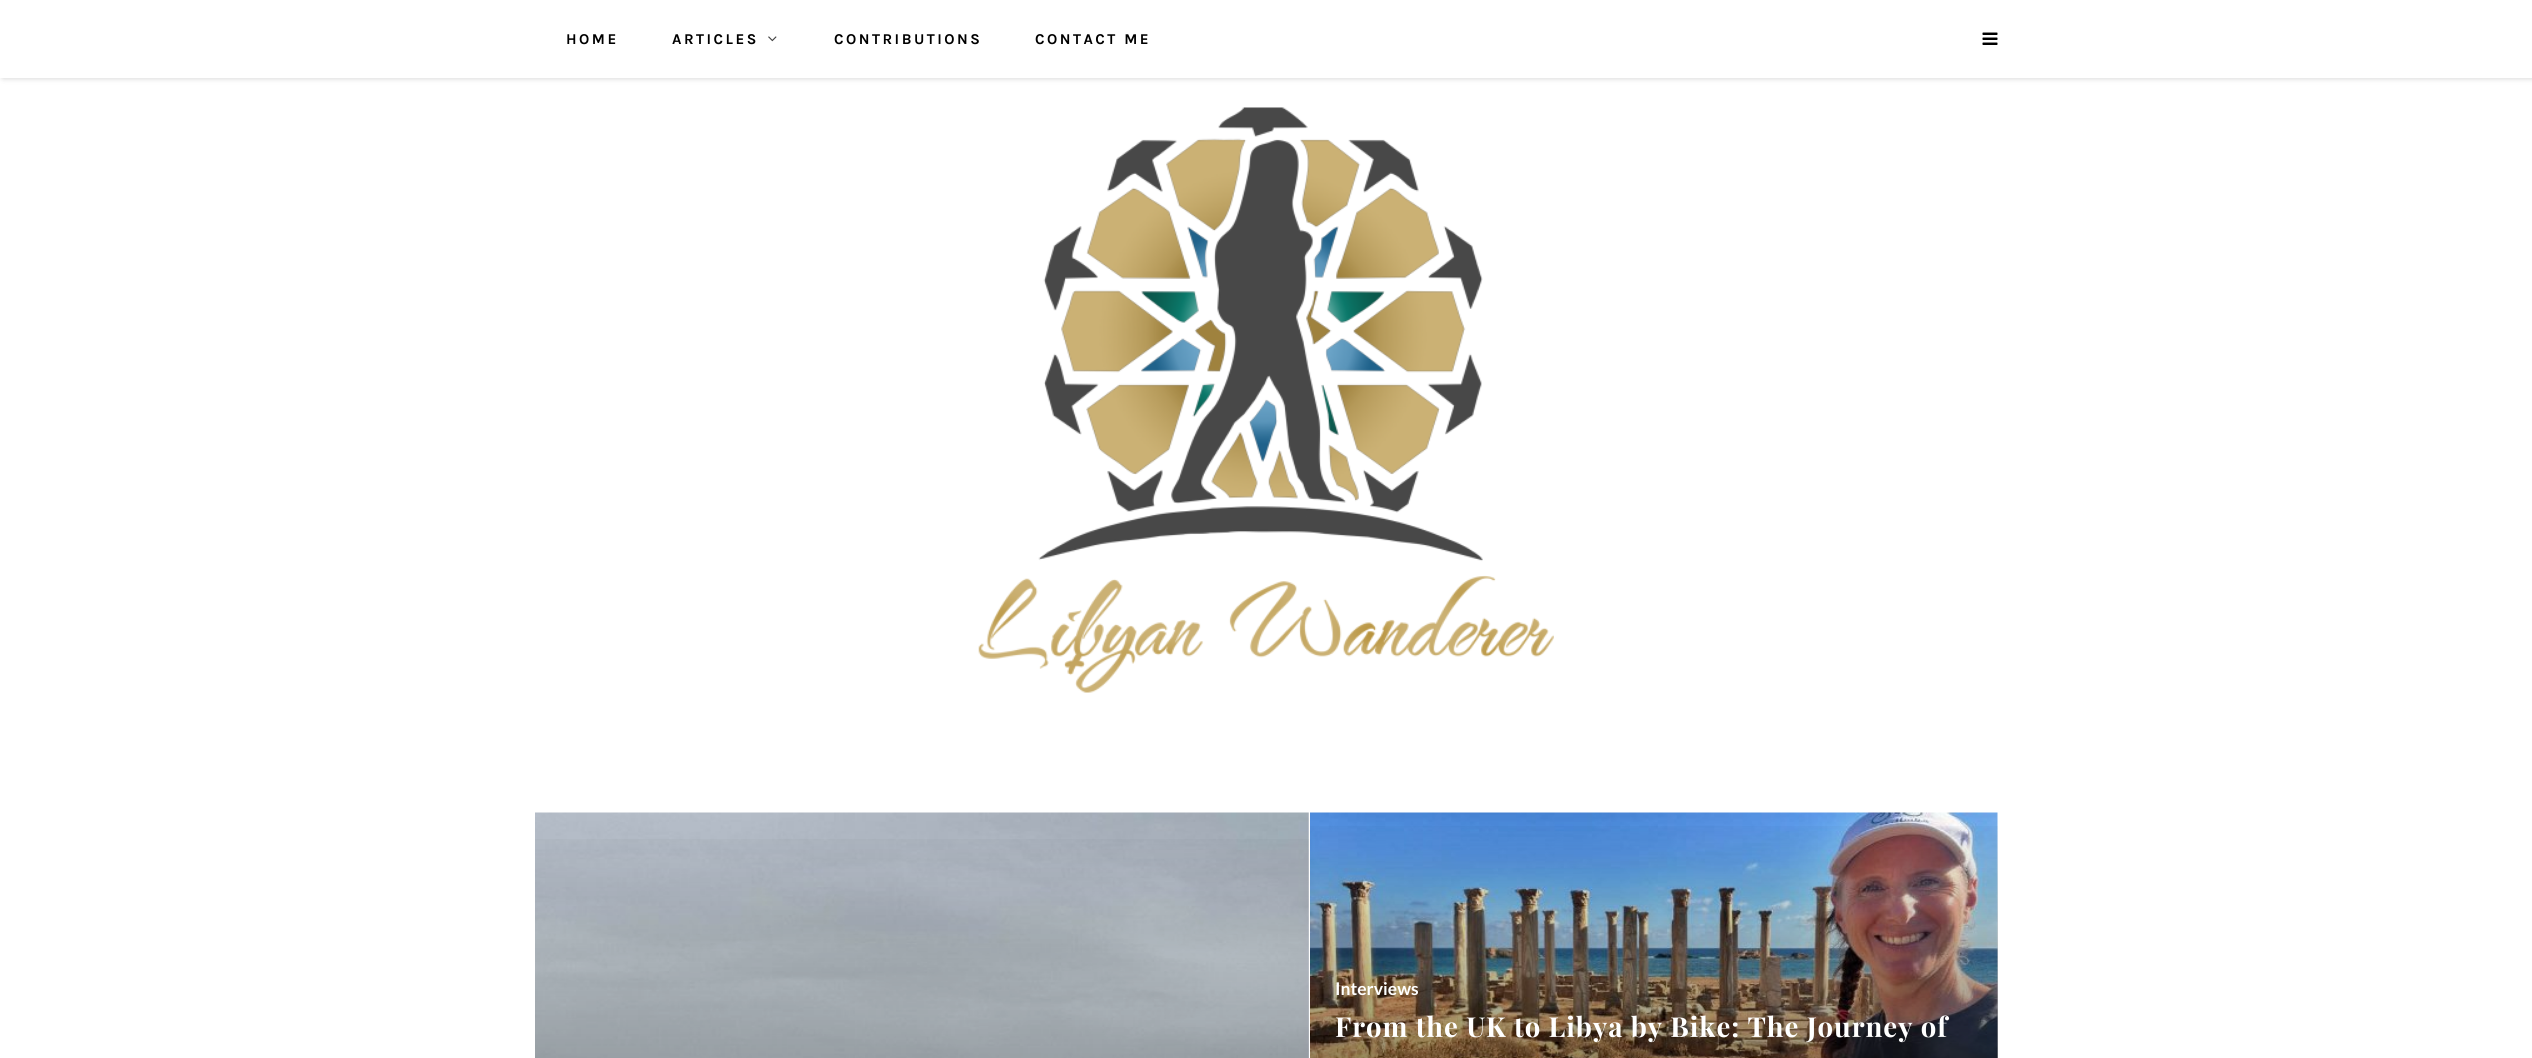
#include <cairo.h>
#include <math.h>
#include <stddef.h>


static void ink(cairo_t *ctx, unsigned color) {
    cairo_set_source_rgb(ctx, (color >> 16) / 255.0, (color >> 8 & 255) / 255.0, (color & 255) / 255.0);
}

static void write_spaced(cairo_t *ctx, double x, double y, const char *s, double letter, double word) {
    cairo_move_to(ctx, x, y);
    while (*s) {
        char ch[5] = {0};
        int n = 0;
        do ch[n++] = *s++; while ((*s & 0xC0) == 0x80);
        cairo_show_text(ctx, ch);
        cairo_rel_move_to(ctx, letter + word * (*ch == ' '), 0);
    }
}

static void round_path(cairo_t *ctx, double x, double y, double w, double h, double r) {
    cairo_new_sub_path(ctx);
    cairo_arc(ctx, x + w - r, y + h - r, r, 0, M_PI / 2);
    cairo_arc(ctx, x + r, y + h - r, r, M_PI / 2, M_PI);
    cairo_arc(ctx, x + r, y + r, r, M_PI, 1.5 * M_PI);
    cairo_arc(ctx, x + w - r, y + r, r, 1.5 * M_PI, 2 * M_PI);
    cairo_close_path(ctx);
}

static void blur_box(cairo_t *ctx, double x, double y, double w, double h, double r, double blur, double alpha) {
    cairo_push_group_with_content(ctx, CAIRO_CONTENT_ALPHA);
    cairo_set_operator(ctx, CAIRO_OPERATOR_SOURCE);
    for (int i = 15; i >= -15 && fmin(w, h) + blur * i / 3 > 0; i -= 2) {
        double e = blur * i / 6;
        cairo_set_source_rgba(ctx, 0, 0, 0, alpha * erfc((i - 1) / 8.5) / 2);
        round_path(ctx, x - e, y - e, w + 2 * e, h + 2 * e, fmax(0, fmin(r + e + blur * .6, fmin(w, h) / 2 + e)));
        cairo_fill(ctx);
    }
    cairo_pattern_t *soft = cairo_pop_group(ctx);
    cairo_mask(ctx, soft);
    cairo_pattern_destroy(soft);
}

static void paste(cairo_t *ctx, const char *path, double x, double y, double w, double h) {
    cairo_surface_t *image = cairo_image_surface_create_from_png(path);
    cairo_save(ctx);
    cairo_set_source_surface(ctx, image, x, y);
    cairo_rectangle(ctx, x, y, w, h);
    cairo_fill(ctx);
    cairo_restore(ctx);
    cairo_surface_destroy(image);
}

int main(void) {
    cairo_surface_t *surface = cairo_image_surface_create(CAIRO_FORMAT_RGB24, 2532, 1058);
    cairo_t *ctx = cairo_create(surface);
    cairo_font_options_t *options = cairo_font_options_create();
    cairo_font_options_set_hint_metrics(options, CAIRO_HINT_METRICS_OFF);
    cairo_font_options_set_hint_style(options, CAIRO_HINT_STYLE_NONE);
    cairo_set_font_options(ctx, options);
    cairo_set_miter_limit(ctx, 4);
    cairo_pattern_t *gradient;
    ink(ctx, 0xFFFFFF);
    cairo_paint(ctx);
    ink(ctx, 0x000000);
    blur_box(ctx, 3, 0, 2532, 78, 0, 3, 0.2);
    ink(ctx, 0xFFFFFF);
    cairo_rectangle(ctx, 0, 0, 2532, 78);
    cairo_fill(ctx);
    cairo_select_font_face(ctx, "Karla", CAIRO_FONT_SLANT_NORMAL, CAIRO_FONT_WEIGHT_BOLD);
    cairo_set_font_size(ctx, 15);
    ink(ctx, 0x000000);
    write_spaced(ctx, 566, 44, "HOME", 2.5, 0);
    write_spaced(ctx, 672, 44, "ARTICLES", 2.5, 0);
    paste(ctx, "media/1.png", 768, 36, 9, 6);
    write_spaced(ctx, 834, 44, "CONTRIBUTIONS", 2.5, 0);
    write_spaced(ctx, 1035, 44, "CONTACT ME", 2.5, 0);
    paste(ctx, "media/2.png", 1982, 32, 16, 13);
    paste(ctx, "media/3.png", 978, 107, 576, 586);
    paste(ctx, "media/4.png", 535, 812, 774, 246);
    gradient = cairo_pattern_create_linear(922, 813, 922, 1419);
    cairo_pattern_add_color_stop_rgba(gradient, 0, 0, 0, 0, 0);
    cairo_pattern_add_color_stop_rgba(gradient, 1, 0, 0, 0, 0.5);
    cairo_set_source(ctx, gradient);
    cairo_pattern_destroy(gradient);
    cairo_rectangle(ctx, 535, 839, 774, 219);
    cairo_fill(ctx);
    paste(ctx, "media/5.png", 1310, 812, 688, 246);
    gradient = cairo_pattern_create_linear(1654, 813, 1654, 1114);
    cairo_pattern_add_color_stop_rgba(gradient, 0, 0, 0, 0, 0);
    cairo_pattern_add_color_stop_rgba(gradient, 1, 0, 0, 0, 0.5);
    cairo_set_source(ctx, gradient);
    cairo_pattern_destroy(gradient);
    cairo_rectangle(ctx, 1310, 826, 688, 232);
    cairo_fill(ctx);
    cairo_select_font_face(ctx, "Lato", CAIRO_FONT_SLANT_NORMAL, CAIRO_FONT_WEIGHT_BOLD);
    cairo_set_font_size(ctx, 17.5);
    ink(ctx, 0xFFFFFF);
    cairo_move_to(ctx, 1335, 995);
    cairo_show_text(ctx, "Interviews");
    cairo_select_font_face(ctx, "Playfair Display", CAIRO_FONT_SLANT_NORMAL, CAIRO_FONT_WEIGHT_BOLD);
    cairo_set_font_size(ctx, 27.5);
    write_spaced(ctx, 1335, 1037, "From the UK to Libya by Bike: The Journey of", 0.95, 0);
    cairo_surface_write_to_png(surface, "image.png");
    cairo_font_options_destroy(options);
    cairo_destroy(ctx);
    cairo_surface_destroy(surface);
    return 0;
}
